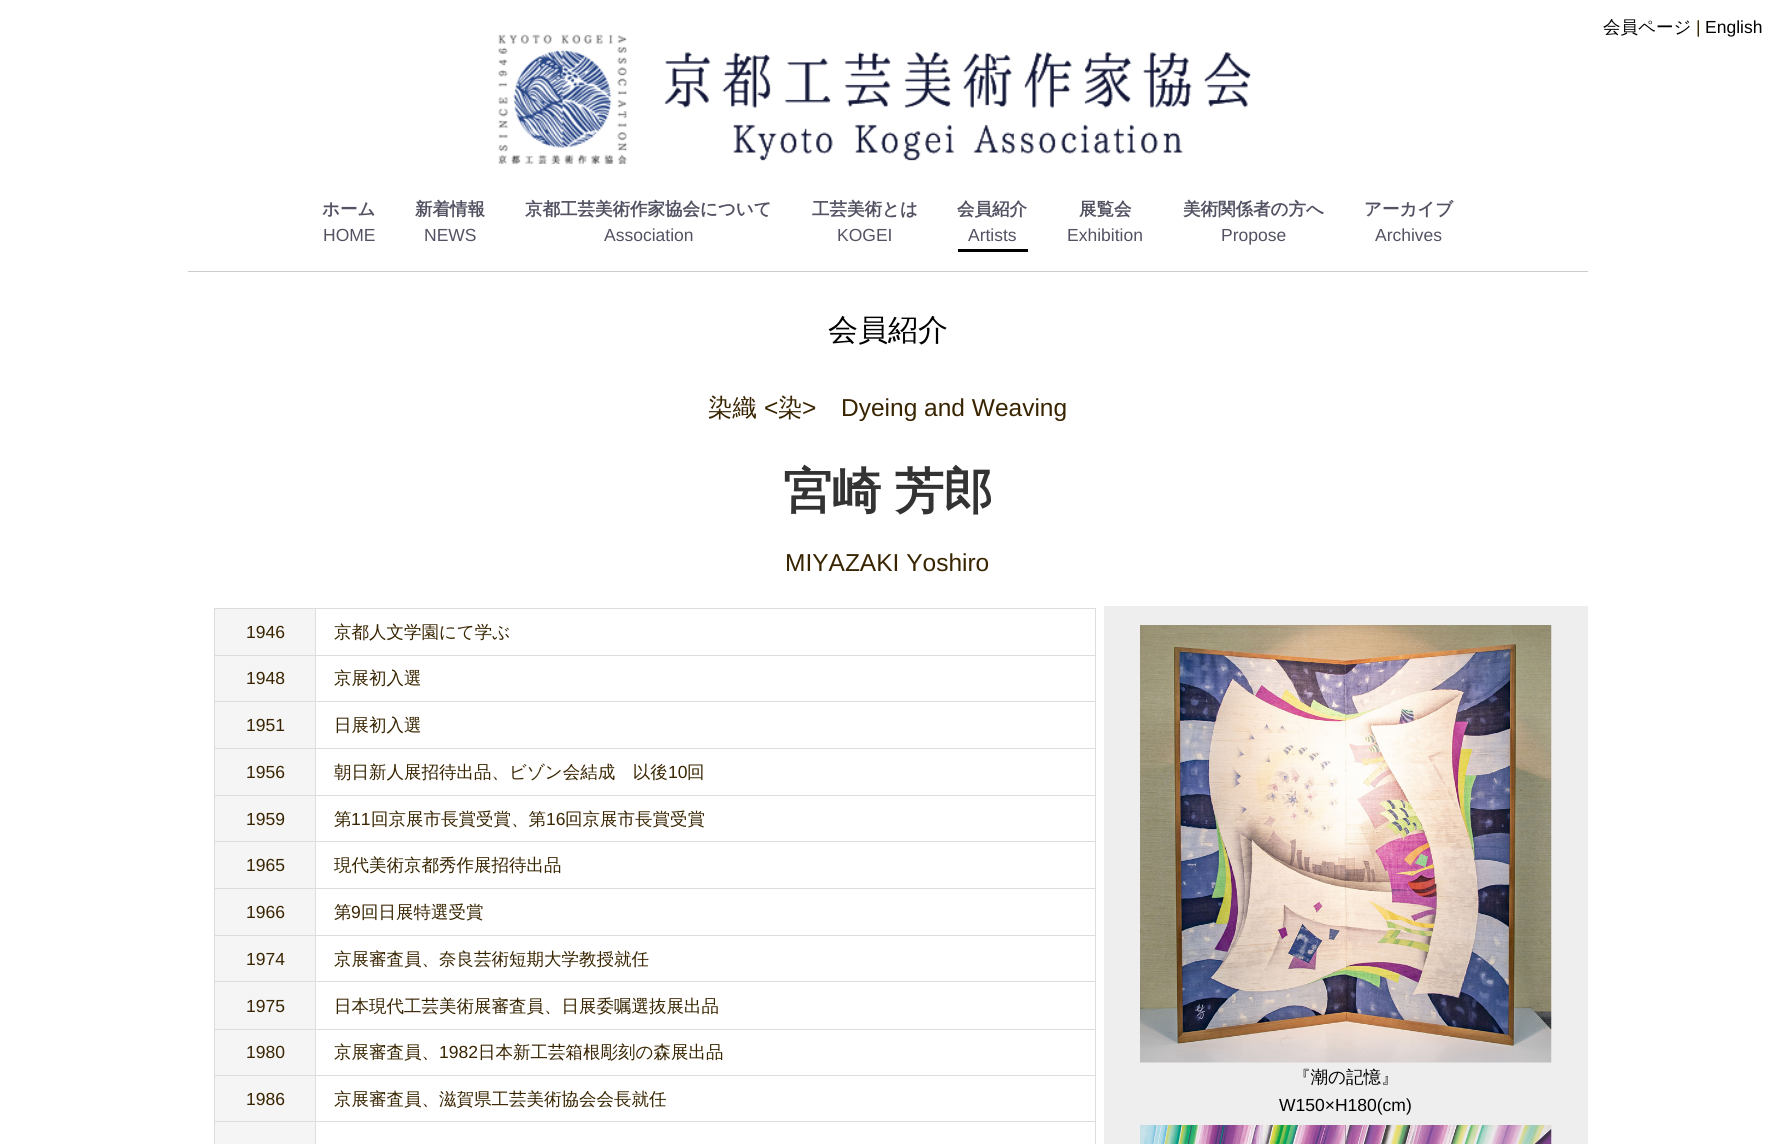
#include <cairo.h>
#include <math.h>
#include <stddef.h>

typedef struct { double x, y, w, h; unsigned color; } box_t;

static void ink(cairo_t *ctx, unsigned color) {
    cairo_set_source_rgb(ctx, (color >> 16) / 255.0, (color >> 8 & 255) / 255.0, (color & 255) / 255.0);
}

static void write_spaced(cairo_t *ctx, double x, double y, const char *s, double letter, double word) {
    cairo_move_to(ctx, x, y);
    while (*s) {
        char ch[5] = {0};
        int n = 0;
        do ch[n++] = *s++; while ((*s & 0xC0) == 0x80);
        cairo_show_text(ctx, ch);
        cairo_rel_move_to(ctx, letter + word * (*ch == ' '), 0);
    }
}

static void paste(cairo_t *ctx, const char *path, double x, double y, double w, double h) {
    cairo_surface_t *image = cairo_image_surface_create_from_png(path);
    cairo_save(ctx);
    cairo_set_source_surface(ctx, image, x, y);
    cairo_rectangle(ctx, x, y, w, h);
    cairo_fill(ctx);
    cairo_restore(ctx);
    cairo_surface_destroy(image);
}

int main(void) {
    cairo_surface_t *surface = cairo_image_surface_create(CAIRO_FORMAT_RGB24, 1775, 1144);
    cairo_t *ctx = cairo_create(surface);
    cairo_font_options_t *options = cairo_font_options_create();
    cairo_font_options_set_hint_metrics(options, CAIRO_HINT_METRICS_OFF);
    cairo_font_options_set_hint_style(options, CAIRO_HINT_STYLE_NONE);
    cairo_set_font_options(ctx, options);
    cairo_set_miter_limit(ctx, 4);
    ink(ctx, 0xFFFFFF);
    cairo_paint(ctx);
    cairo_select_font_face(ctx, "WenQuanYi Zen Hei Medium", CAIRO_FONT_SLANT_NORMAL, CAIRO_FONT_WEIGHT_NORMAL);
    cairo_set_font_size(ctx, 17.5);
    ink(ctx, 0x000000);
    cairo_move_to(ctx, 1603, 33);
    cairo_show_text(ctx, "会員ページ");
    cairo_select_font_face(ctx, "Liberation Sans", CAIRO_FONT_SLANT_NORMAL, CAIRO_FONT_WEIGHT_NORMAL);
    ink(ctx, 0x382400);
    cairo_move_to(ctx, 1696, 33);
    cairo_show_text(ctx, "|");
    ink(ctx, 0x000000);
    cairo_move_to(ctx, 1705, 33);
    cairo_show_text(ctx, "English");
    paste(ctx, "media/1.png", 498, 34, 753, 131);
    cairo_select_font_face(ctx, "WenQuanYi Zen Hei", CAIRO_FONT_SLANT_NORMAL, CAIRO_FONT_WEIGHT_BOLD);
    ink(ctx, 0x525263);
    cairo_move_to(ctx, 322, 215);
    cairo_show_text(ctx, "ホーム");
    cairo_select_font_face(ctx, "Liberation Sans", CAIRO_FONT_SLANT_NORMAL, CAIRO_FONT_WEIGHT_NORMAL);
    cairo_move_to(ctx, 323, 241);
    cairo_show_text(ctx, "HOME");
    cairo_select_font_face(ctx, "WenQuanYi Zen Hei", CAIRO_FONT_SLANT_NORMAL, CAIRO_FONT_WEIGHT_BOLD);
    cairo_move_to(ctx, 415, 215);
    cairo_show_text(ctx, "新着情報");
    cairo_select_font_face(ctx, "Liberation Sans", CAIRO_FONT_SLANT_NORMAL, CAIRO_FONT_WEIGHT_NORMAL);
    cairo_move_to(ctx, 424, 241);
    cairo_show_text(ctx, "NEWS");
    cairo_select_font_face(ctx, "WenQuanYi Zen Hei", CAIRO_FONT_SLANT_NORMAL, CAIRO_FONT_WEIGHT_BOLD);
    cairo_move_to(ctx, 525, 215);
    cairo_show_text(ctx, "京都工芸美術作家協会について");
    cairo_select_font_face(ctx, "Liberation Sans", CAIRO_FONT_SLANT_NORMAL, CAIRO_FONT_WEIGHT_NORMAL);
    cairo_move_to(ctx, 604, 241);
    cairo_show_text(ctx, "Association");
    cairo_select_font_face(ctx, "WenQuanYi Zen Hei", CAIRO_FONT_SLANT_NORMAL, CAIRO_FONT_WEIGHT_BOLD);
    cairo_move_to(ctx, 812, 215);
    cairo_show_text(ctx, "工芸美術とは");
    cairo_select_font_face(ctx, "Liberation Sans", CAIRO_FONT_SLANT_NORMAL, CAIRO_FONT_WEIGHT_NORMAL);
    cairo_move_to(ctx, 837, 241);
    cairo_show_text(ctx, "KOGEI");
    ink(ctx, 0x000000);
    cairo_rectangle(ctx, 958, 249, 70, 3);
    cairo_fill(ctx);
    cairo_select_font_face(ctx, "WenQuanYi Zen Hei", CAIRO_FONT_SLANT_NORMAL, CAIRO_FONT_WEIGHT_BOLD);
    ink(ctx, 0x525263);
    cairo_move_to(ctx, 957, 215);
    cairo_show_text(ctx, "会員紹介");
    cairo_select_font_face(ctx, "Liberation Sans", CAIRO_FONT_SLANT_NORMAL, CAIRO_FONT_WEIGHT_NORMAL);
    cairo_move_to(ctx, 968, 241);
    cairo_show_text(ctx, "Artists");
    cairo_select_font_face(ctx, "WenQuanYi Zen Hei", CAIRO_FONT_SLANT_NORMAL, CAIRO_FONT_WEIGHT_BOLD);
    cairo_move_to(ctx, 1079, 215);
    cairo_show_text(ctx, "展覧会");
    cairo_select_font_face(ctx, "Liberation Sans", CAIRO_FONT_SLANT_NORMAL, CAIRO_FONT_WEIGHT_NORMAL);
    cairo_move_to(ctx, 1067, 241);
    cairo_show_text(ctx, "Exhibition");
    cairo_select_font_face(ctx, "WenQuanYi Zen Hei", CAIRO_FONT_SLANT_NORMAL, CAIRO_FONT_WEIGHT_BOLD);
    cairo_move_to(ctx, 1183, 215);
    cairo_show_text(ctx, "美術関係者の方へ");
    cairo_select_font_face(ctx, "Liberation Sans", CAIRO_FONT_SLANT_NORMAL, CAIRO_FONT_WEIGHT_NORMAL);
    cairo_move_to(ctx, 1221, 241);
    cairo_show_text(ctx, "Propose");
    cairo_select_font_face(ctx, "WenQuanYi Zen Hei", CAIRO_FONT_SLANT_NORMAL, CAIRO_FONT_WEIGHT_BOLD);
    cairo_move_to(ctx, 1364, 215);
    cairo_show_text(ctx, "アーカイブ");
    cairo_select_font_face(ctx, "Liberation Sans", CAIRO_FONT_SLANT_NORMAL, CAIRO_FONT_WEIGHT_NORMAL);
    cairo_move_to(ctx, 1375, 241);
    cairo_show_text(ctx, "Archives");
    ink(ctx, 0xCCCCCC);
    cairo_rectangle(ctx, 188, 271, 1400, 1);
    cairo_fill(ctx);
    cairo_select_font_face(ctx, "WenQuanYi Zen Hei Medium", CAIRO_FONT_SLANT_NORMAL, CAIRO_FONT_WEIGHT_NORMAL);
    cairo_set_font_size(ctx, 30);
    ink(ctx, 0x000000);
    cairo_move_to(ctx, 828, 340);
    cairo_show_text(ctx, "会員紹介");
    cairo_set_font_size(ctx, 24.5);
    ink(ctx, 0x382400);
    cairo_move_to(ctx, 708, 416);
    cairo_show_text(ctx, "染織");
    cairo_select_font_face(ctx, "Liberation Sans", CAIRO_FONT_SLANT_NORMAL, CAIRO_FONT_WEIGHT_NORMAL);
    cairo_move_to(ctx, 764, 416);
    cairo_show_text(ctx, "<");
    cairo_select_font_face(ctx, "WenQuanYi Zen Hei Medium", CAIRO_FONT_SLANT_NORMAL, CAIRO_FONT_WEIGHT_NORMAL);
    cairo_move_to(ctx, 778, 416);
    cairo_show_text(ctx, "染");
    cairo_select_font_face(ctx, "Liberation Sans", CAIRO_FONT_SLANT_NORMAL, CAIRO_FONT_WEIGHT_NORMAL);
    cairo_move_to(ctx, 802, 416);
    cairo_show_text(ctx, ">");
    cairo_move_to(ctx, 841, 416);
    cairo_show_text(ctx, "Dyeing and Weaving");
    cairo_select_font_face(ctx, "WenQuanYi Zen Hei", CAIRO_FONT_SLANT_NORMAL, CAIRO_FONT_WEIGHT_BOLD);
    cairo_set_font_size(ctx, 49);
    ink(ctx, 0x333333);
    write_spaced(ctx, 783, 508, "宮崎 芳郎", 0, -1);
    cairo_select_font_face(ctx, "Liberation Sans", CAIRO_FONT_SLANT_NORMAL, CAIRO_FONT_WEIGHT_NORMAL);
    cairo_set_font_size(ctx, 24.5);
    ink(ctx, 0x382400);
    cairo_move_to(ctx, 785, 571);
    cairo_show_text(ctx, "MIYAZAKI Yoshiro");
    {
        static const box_t items[] = {
            {214, 608, 882, 1, 0xDDDDDD},
            {1095, 608, 1, 536, 0xDDDDDD},
            {214, 608, 1, 536, 0xDDDDDD},
            {215, 609, 100, 46, 0xF5F5F5},
        };
        for (size_t i = 0; i < sizeof items / sizeof *items; i++) {
            ink(ctx, items[i].color);
            cairo_rectangle(ctx, items[i].x, items[i].y, items[i].w, items[i].h);
            cairo_fill(ctx);
        }
    }
    cairo_set_font_size(ctx, 17.5);
    ink(ctx, 0x382400);
    cairo_move_to(ctx, 246, 638);
    cairo_show_text(ctx, "1946");
    {
        static const box_t items[] = {
            {315, 655, 781, 1, 0xDDDDDD},
            {315, 701, 781, 1, 0xDDDDDD},
            {315, 748, 781, 1, 0xDDDDDD},
            {315, 795, 781, 1, 0xDDDDDD},
            {215, 796, 100, 92, 0xF5F5F5},
            {315, 841, 781, 1, 0xDDDDDD},
            {315, 888, 781, 1, 0xDDDDDD},
            {315, 935, 781, 1, 0xDDDDDD},
            {215, 936, 100, 93, 0xF5F5F5},
            {315, 981, 781, 1, 0xDDDDDD},
            {315, 1029, 781, 1, 0xDDDDDD},
            {315, 1075, 781, 1, 0xDDDDDD},
            {215, 1076, 100, 68, 0xF5F5F5},
            {315, 1121, 781, 1, 0xDDDDDD},
            {315, 1121, 1, 23, 0xDDDDDD},
            {214, 1121, 102, 1, 0xDDDDDD},
            {315, 1075, 1, 48, 0xDDDDDD},
            {214, 1075, 102, 1, 0xDDDDDD},
            {315, 1029, 1, 47, 0xDDDDDD},
            {214, 1029, 102, 1, 0xDDDDDD},
            {315, 981, 1, 49, 0xDDDDDD},
            {214, 981, 102, 1, 0xDDDDDD},
            {315, 935, 1, 48, 0xDDDDDD},
            {214, 935, 102, 1, 0xDDDDDD},
            {315, 888, 1, 48, 0xDDDDDD},
            {214, 888, 102, 1, 0xDDDDDD},
            {315, 841, 1, 48, 0xDDDDDD},
            {214, 841, 102, 1, 0xDDDDDD},
            {315, 795, 1, 48, 0xDDDDDD},
            {214, 795, 102, 1, 0xDDDDDD},
            {315, 748, 1, 48, 0xDDDDDD},
            {214, 748, 102, 1, 0xDDDDDD},
            {315, 701, 1, 48, 0xDDDDDD},
            {214, 701, 102, 1, 0xDDDDDD},
            {315, 655, 1, 48, 0xDDDDDD},
            {214, 655, 102, 1, 0xDDDDDD},
            {315, 608, 1, 48, 0xDDDDDD},
        };
        for (size_t i = 0; i < sizeof items / sizeof *items; i++) {
            ink(ctx, items[i].color);
            cairo_rectangle(ctx, items[i].x, items[i].y, items[i].w, items[i].h);
            cairo_fill(ctx);
        }
    }
    cairo_select_font_face(ctx, "WenQuanYi Zen Hei Medium", CAIRO_FONT_SLANT_NORMAL, CAIRO_FONT_WEIGHT_NORMAL);
    ink(ctx, 0x382400);
    cairo_move_to(ctx, 334, 638);
    cairo_show_text(ctx, "京都人文学園にて学ぶ");
    ink(ctx, 0xF5F5F5);
    cairo_rectangle(ctx, 215, 656, 100, 45);
    cairo_fill(ctx);
    cairo_select_font_face(ctx, "Liberation Sans", CAIRO_FONT_SLANT_NORMAL, CAIRO_FONT_WEIGHT_NORMAL);
    ink(ctx, 0x382400);
    cairo_move_to(ctx, 246, 684);
    cairo_show_text(ctx, "1948");
    cairo_select_font_face(ctx, "WenQuanYi Zen Hei Medium", CAIRO_FONT_SLANT_NORMAL, CAIRO_FONT_WEIGHT_NORMAL);
    cairo_move_to(ctx, 334, 684);
    cairo_show_text(ctx, "京展初入選");
    ink(ctx, 0xF5F5F5);
    cairo_rectangle(ctx, 215, 702, 100, 46);
    cairo_fill(ctx);
    cairo_select_font_face(ctx, "Liberation Sans", CAIRO_FONT_SLANT_NORMAL, CAIRO_FONT_WEIGHT_NORMAL);
    ink(ctx, 0x382400);
    cairo_move_to(ctx, 246, 731);
    cairo_show_text(ctx, "1951");
    cairo_select_font_face(ctx, "WenQuanYi Zen Hei Medium", CAIRO_FONT_SLANT_NORMAL, CAIRO_FONT_WEIGHT_NORMAL);
    cairo_move_to(ctx, 334, 731);
    cairo_show_text(ctx, "日展初入選");
    ink(ctx, 0xF5F5F5);
    cairo_rectangle(ctx, 215, 749, 100, 46);
    cairo_fill(ctx);
    cairo_select_font_face(ctx, "Liberation Sans", CAIRO_FONT_SLANT_NORMAL, CAIRO_FONT_WEIGHT_NORMAL);
    ink(ctx, 0x382400);
    cairo_move_to(ctx, 246, 778);
    cairo_show_text(ctx, "1956");
    cairo_select_font_face(ctx, "WenQuanYi Zen Hei Medium", CAIRO_FONT_SLANT_NORMAL, CAIRO_FONT_WEIGHT_NORMAL);
    cairo_move_to(ctx, 334, 778);
    cairo_show_text(ctx, "朝日新人展招待出品、ビゾン会結成　以後");
    cairo_select_font_face(ctx, "Liberation Sans", CAIRO_FONT_SLANT_NORMAL, CAIRO_FONT_WEIGHT_NORMAL);
    cairo_move_to(ctx, 668, 778);
    cairo_show_text(ctx, "10");
    cairo_select_font_face(ctx, "WenQuanYi Zen Hei Medium", CAIRO_FONT_SLANT_NORMAL, CAIRO_FONT_WEIGHT_NORMAL);
    cairo_move_to(ctx, 687, 778);
    cairo_show_text(ctx, "回");
    cairo_select_font_face(ctx, "Liberation Sans", CAIRO_FONT_SLANT_NORMAL, CAIRO_FONT_WEIGHT_NORMAL);
    cairo_move_to(ctx, 246, 825);
    cairo_show_text(ctx, "1959");
    cairo_select_font_face(ctx, "WenQuanYi Zen Hei Medium", CAIRO_FONT_SLANT_NORMAL, CAIRO_FONT_WEIGHT_NORMAL);
    cairo_move_to(ctx, 334, 825);
    cairo_show_text(ctx, "第");
    cairo_select_font_face(ctx, "Liberation Sans", CAIRO_FONT_SLANT_NORMAL, CAIRO_FONT_WEIGHT_NORMAL);
    cairo_move_to(ctx, 351, 825);
    cairo_show_text(ctx, "11");
    cairo_select_font_face(ctx, "WenQuanYi Zen Hei Medium", CAIRO_FONT_SLANT_NORMAL, CAIRO_FONT_WEIGHT_NORMAL);
    cairo_move_to(ctx, 371, 825);
    cairo_show_text(ctx, "回京展市長賞受賞、第");
    cairo_select_font_face(ctx, "Liberation Sans", CAIRO_FONT_SLANT_NORMAL, CAIRO_FONT_WEIGHT_NORMAL);
    cairo_move_to(ctx, 546, 825);
    cairo_show_text(ctx, "16");
    cairo_select_font_face(ctx, "WenQuanYi Zen Hei Medium", CAIRO_FONT_SLANT_NORMAL, CAIRO_FONT_WEIGHT_NORMAL);
    cairo_move_to(ctx, 565, 825);
    cairo_show_text(ctx, "回京展市長賞受賞");
    cairo_select_font_face(ctx, "Liberation Sans", CAIRO_FONT_SLANT_NORMAL, CAIRO_FONT_WEIGHT_NORMAL);
    cairo_move_to(ctx, 246, 871);
    cairo_show_text(ctx, "1965");
    cairo_select_font_face(ctx, "WenQuanYi Zen Hei Medium", CAIRO_FONT_SLANT_NORMAL, CAIRO_FONT_WEIGHT_NORMAL);
    cairo_move_to(ctx, 334, 871);
    cairo_show_text(ctx, "現代美術京都秀作展招待出品");
    ink(ctx, 0xF5F5F5);
    cairo_rectangle(ctx, 215, 889, 100, 46);
    cairo_fill(ctx);
    cairo_select_font_face(ctx, "Liberation Sans", CAIRO_FONT_SLANT_NORMAL, CAIRO_FONT_WEIGHT_NORMAL);
    ink(ctx, 0x382400);
    cairo_move_to(ctx, 246, 918);
    cairo_show_text(ctx, "1966");
    cairo_select_font_face(ctx, "WenQuanYi Zen Hei Medium", CAIRO_FONT_SLANT_NORMAL, CAIRO_FONT_WEIGHT_NORMAL);
    cairo_move_to(ctx, 334, 918);
    cairo_show_text(ctx, "第");
    cairo_select_font_face(ctx, "Liberation Sans", CAIRO_FONT_SLANT_NORMAL, CAIRO_FONT_WEIGHT_NORMAL);
    cairo_move_to(ctx, 351, 918);
    cairo_show_text(ctx, "9");
    cairo_select_font_face(ctx, "WenQuanYi Zen Hei Medium", CAIRO_FONT_SLANT_NORMAL, CAIRO_FONT_WEIGHT_NORMAL);
    cairo_move_to(ctx, 361, 918);
    cairo_show_text(ctx, "回日展特選受賞");
    cairo_select_font_face(ctx, "Liberation Sans", CAIRO_FONT_SLANT_NORMAL, CAIRO_FONT_WEIGHT_NORMAL);
    cairo_move_to(ctx, 246, 965);
    cairo_show_text(ctx, "1974");
    cairo_select_font_face(ctx, "WenQuanYi Zen Hei Medium", CAIRO_FONT_SLANT_NORMAL, CAIRO_FONT_WEIGHT_NORMAL);
    cairo_move_to(ctx, 334, 965);
    cairo_show_text(ctx, "京展審査員、奈良芸術短期大学教授就任");
    cairo_select_font_face(ctx, "Liberation Sans", CAIRO_FONT_SLANT_NORMAL, CAIRO_FONT_WEIGHT_NORMAL);
    cairo_move_to(ctx, 246, 1012);
    cairo_show_text(ctx, "1975");
    cairo_select_font_face(ctx, "WenQuanYi Zen Hei Medium", CAIRO_FONT_SLANT_NORMAL, CAIRO_FONT_WEIGHT_NORMAL);
    cairo_move_to(ctx, 334, 1012);
    cairo_show_text(ctx, "日本現代工芸美術展審査員、日展委嘱選抜展出品");
    ink(ctx, 0xF5F5F5);
    cairo_rectangle(ctx, 215, 1030, 100, 45);
    cairo_fill(ctx);
    cairo_select_font_face(ctx, "Liberation Sans", CAIRO_FONT_SLANT_NORMAL, CAIRO_FONT_WEIGHT_NORMAL);
    ink(ctx, 0x382400);
    cairo_move_to(ctx, 246, 1058);
    cairo_show_text(ctx, "1980");
    cairo_select_font_face(ctx, "WenQuanYi Zen Hei Medium", CAIRO_FONT_SLANT_NORMAL, CAIRO_FONT_WEIGHT_NORMAL);
    cairo_move_to(ctx, 334, 1058);
    cairo_show_text(ctx, "京展審査員、");
    cairo_select_font_face(ctx, "Liberation Sans", CAIRO_FONT_SLANT_NORMAL, CAIRO_FONT_WEIGHT_NORMAL);
    cairo_move_to(ctx, 439, 1058);
    cairo_show_text(ctx, "1982");
    cairo_select_font_face(ctx, "WenQuanYi Zen Hei Medium", CAIRO_FONT_SLANT_NORMAL, CAIRO_FONT_WEIGHT_NORMAL);
    cairo_move_to(ctx, 478, 1058);
    cairo_show_text(ctx, "日本新工芸箱根彫刻の森展出品");
    cairo_select_font_face(ctx, "Liberation Sans", CAIRO_FONT_SLANT_NORMAL, CAIRO_FONT_WEIGHT_NORMAL);
    cairo_move_to(ctx, 246, 1105);
    cairo_show_text(ctx, "1986");
    cairo_select_font_face(ctx, "WenQuanYi Zen Hei Medium", CAIRO_FONT_SLANT_NORMAL, CAIRO_FONT_WEIGHT_NORMAL);
    cairo_move_to(ctx, 334, 1105);
    cairo_show_text(ctx, "京展審査員、滋賀県工芸美術協会会長就任");
    ink(ctx, 0xEEEEEE);
    cairo_rectangle(ctx, 1104, 606, 484, 538);
    cairo_fill(ctx);
    paste(ctx, "media/2.png", 1140, 625, 412, 438);
    ink(ctx, 0x000000);
    cairo_move_to(ctx, 1293, 1083);
    cairo_show_text(ctx, "『潮の記憶』");
    cairo_select_font_face(ctx, "Liberation Sans", CAIRO_FONT_SLANT_NORMAL, CAIRO_FONT_WEIGHT_NORMAL);
    cairo_move_to(ctx, 1279, 1111);
    cairo_show_text(ctx, "W150×H180(cm)");
    paste(ctx, "media/3.png", 1140, 1125, 412, 19);
    cairo_surface_write_to_png(surface, "image.png");
    cairo_font_options_destroy(options);
    cairo_destroy(ctx);
    cairo_surface_destroy(surface);
    return 0;
}
